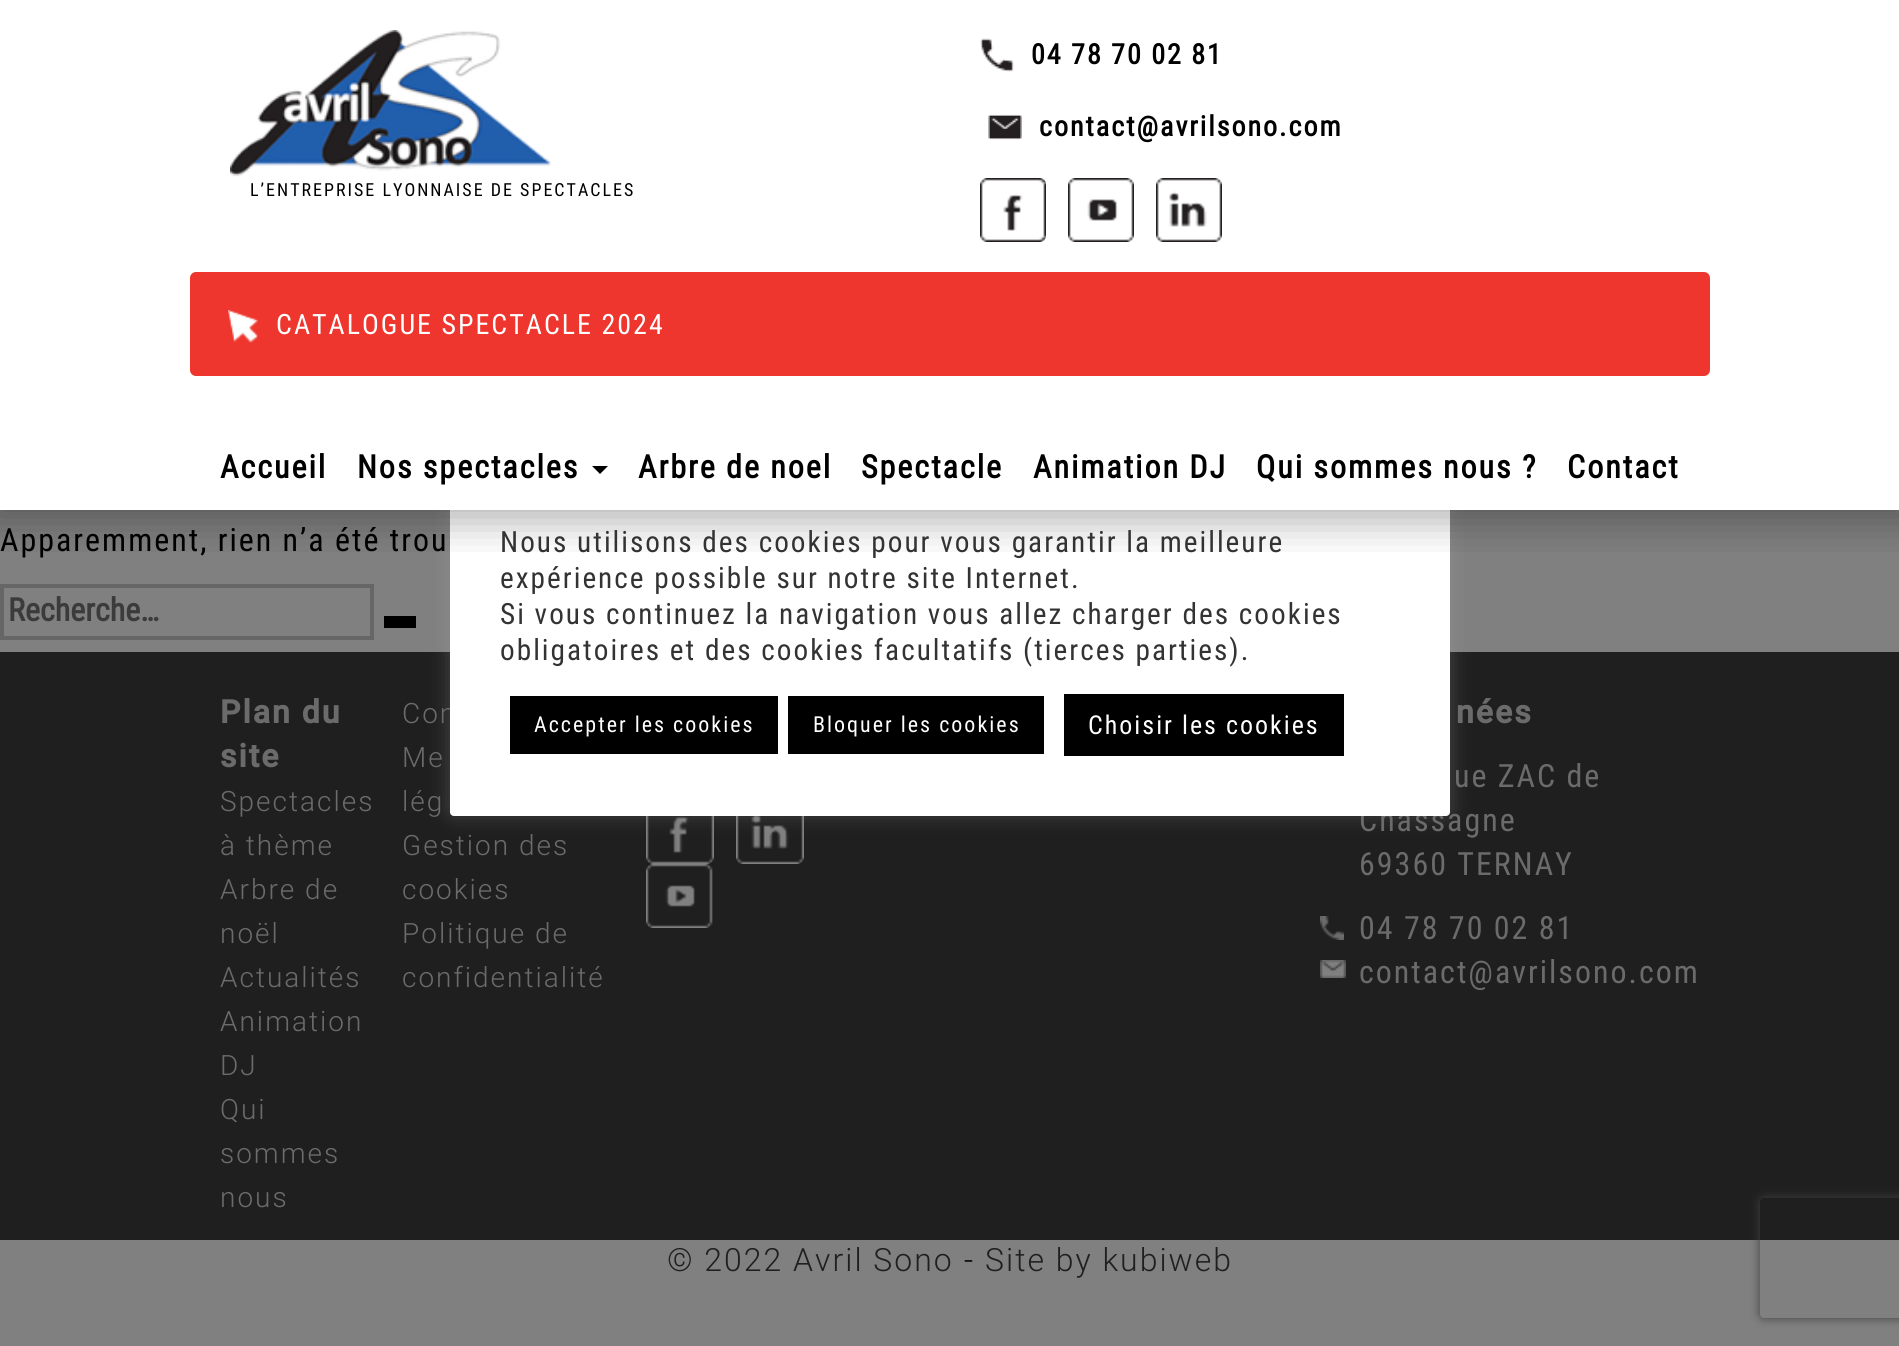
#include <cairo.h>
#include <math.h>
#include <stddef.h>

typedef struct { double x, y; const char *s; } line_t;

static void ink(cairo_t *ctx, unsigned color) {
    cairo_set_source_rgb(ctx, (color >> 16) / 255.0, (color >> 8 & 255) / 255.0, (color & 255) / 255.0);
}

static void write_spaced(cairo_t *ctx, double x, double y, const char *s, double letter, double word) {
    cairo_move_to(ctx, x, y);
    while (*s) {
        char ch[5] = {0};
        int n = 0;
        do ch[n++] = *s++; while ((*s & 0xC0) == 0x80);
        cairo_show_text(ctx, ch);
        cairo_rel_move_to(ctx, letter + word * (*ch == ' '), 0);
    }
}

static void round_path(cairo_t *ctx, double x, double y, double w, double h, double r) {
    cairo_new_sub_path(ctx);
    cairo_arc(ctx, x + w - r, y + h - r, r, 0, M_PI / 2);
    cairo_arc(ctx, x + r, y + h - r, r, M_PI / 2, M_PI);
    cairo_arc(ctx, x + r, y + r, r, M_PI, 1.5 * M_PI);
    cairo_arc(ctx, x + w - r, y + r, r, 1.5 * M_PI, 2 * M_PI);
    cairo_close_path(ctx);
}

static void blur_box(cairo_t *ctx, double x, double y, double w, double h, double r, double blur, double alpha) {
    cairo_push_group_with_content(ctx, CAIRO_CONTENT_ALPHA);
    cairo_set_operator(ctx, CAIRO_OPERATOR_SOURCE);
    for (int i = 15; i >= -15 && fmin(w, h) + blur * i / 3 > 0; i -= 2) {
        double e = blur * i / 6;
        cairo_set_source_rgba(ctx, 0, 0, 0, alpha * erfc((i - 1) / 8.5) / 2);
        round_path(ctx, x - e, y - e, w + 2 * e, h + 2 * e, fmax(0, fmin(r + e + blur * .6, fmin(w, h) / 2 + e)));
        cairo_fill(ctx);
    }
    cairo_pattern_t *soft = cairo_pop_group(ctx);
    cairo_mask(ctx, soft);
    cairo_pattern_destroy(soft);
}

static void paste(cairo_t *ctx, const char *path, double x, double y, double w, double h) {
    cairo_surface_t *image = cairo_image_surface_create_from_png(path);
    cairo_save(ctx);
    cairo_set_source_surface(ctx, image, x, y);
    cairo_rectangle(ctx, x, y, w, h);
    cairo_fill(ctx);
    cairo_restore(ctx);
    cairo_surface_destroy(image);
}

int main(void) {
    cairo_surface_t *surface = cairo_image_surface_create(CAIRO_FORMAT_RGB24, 1899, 1346);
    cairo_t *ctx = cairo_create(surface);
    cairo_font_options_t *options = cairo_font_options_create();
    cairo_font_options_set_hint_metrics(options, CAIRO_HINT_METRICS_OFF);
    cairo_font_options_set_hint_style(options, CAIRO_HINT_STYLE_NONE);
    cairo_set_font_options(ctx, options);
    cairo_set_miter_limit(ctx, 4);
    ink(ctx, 0x808080);
    cairo_paint(ctx);
    ink(ctx, 0x1F1F1F);
    cairo_rectangle(ctx, 0, 652, 1899, 588);
    cairo_fill(ctx);
    paste(ctx, "media/8.png", 646, 816, 68, 48);
    paste(ctx, "media/9.png", 736, 816, 68, 48);
    ink(ctx, 0xACABAB);
    blur_box(ctx, 450, 472, 1000, 342, 4, 10, 0.3);
    cairo_select_font_face(ctx, "Roboto Light", CAIRO_FONT_SLANT_NORMAL, CAIRO_FONT_WEIGHT_NORMAL);
    cairo_set_font_size(ctx, 28);
    ink(ctx, 0x6B6B6B);
    write_spaced(ctx, 402, 723, "Con", 2, 0);
    cairo_select_font_face(ctx, "Roboto Condensed", CAIRO_FONT_SLANT_NORMAL, CAIRO_FONT_WEIGHT_NORMAL);
    cairo_set_font_size(ctx, 32);
    write_spaced(ctx, 1359, 831, "Chassagne", 2, 0);
    ink(ctx, 0xFFFFFF);
    round_path(ctx, 450, 474, 1000, 342, 4);
    cairo_fill(ctx);
    cairo_rectangle(ctx, 0, 0, 1899, 510);
    cairo_fill(ctx);
    cairo_save(ctx);
    cairo_rectangle(ctx, 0, 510, 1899, 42);
    cairo_clip(ctx);
    ink(ctx, 0x000000);
    blur_box(ctx, -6, 0, 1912, 522, 0, 20, 0.3);
    cairo_restore(ctx);
    paste(ctx, "media/1.png", 980, 38, 34, 34);
    cairo_select_font_face(ctx, "Roboto Condensed", CAIRO_FONT_SLANT_NORMAL, CAIRO_FONT_WEIGHT_BOLD);
    cairo_set_font_size(ctx, 28);
    ink(ctx, 0x000000);
    write_spaced(ctx, 1031, 64, "04 78 70 02 81", 2, 0);
    paste(ctx, "media/2.png", 988, 114, 34, 26);
    write_spaced(ctx, 1039, 136, "contact@avrilsono.com", 2, 0);
    paste(ctx, "media/3.png", 980, 178, 66, 64);
    paste(ctx, "media/4.png", 1068, 178, 66, 64);
    paste(ctx, "media/5.png", 1156, 178, 66, 64);
    ink(ctx, 0xEE362E);
    round_path(ctx, 190, 272, 1520, 104, 6);
    cairo_fill(ctx);
    paste(ctx, "media/6.png", 228, 310, 30, 33);
    cairo_select_font_face(ctx, "Roboto Condensed", CAIRO_FONT_SLANT_NORMAL, CAIRO_FONT_WEIGHT_NORMAL);
    ink(ctx, 0xFFFFFF);
    write_spaced(ctx, 276, 334, "CATALOGUE SPECTACLE 2024", 2, 0);
    cairo_select_font_face(ctx, "Roboto Condensed", CAIRO_FONT_SLANT_NORMAL, CAIRO_FONT_WEIGHT_BOLD);
    cairo_set_font_size(ctx, 32);
    ink(ctx, 0x000000);
    write_spaced(ctx, 220, 478, "Accueil", 2, 0);
    write_spaced(ctx, 357, 478, "Nos spectacles", 2, 0);
    cairo_new_path(ctx);
    cairo_move_to(ctx, 592, 466);
    cairo_line_to(ctx, 608, 466);
    cairo_line_to(ctx, 600, 474);
    cairo_close_path(ctx);
    cairo_fill(ctx);
    {
        static const line_t items[] = {
            {638, 478, "Arbre de noel"},
            {861, 478, "Spectacle"},
            {1033, 478, "Animation DJ"},
            {1256, 478, "Qui sommes nous ?"},
            {1567, 478, "Contact"},
        };
        for (size_t i = 0; i < sizeof items / sizeof *items; i++) {
            write_spaced(ctx, items[i].x, items[i].y, items[i].s, 2, 0);
        }
    }
    paste(ctx, "media/7.png", 230, 30, 321, 147);
    cairo_select_font_face(ctx, "Roboto Condensed", CAIRO_FONT_SLANT_NORMAL, CAIRO_FONT_WEIGHT_NORMAL);
    cairo_set_font_size(ctx, 18);
    write_spaced(ctx, 250, 196, "L’ENTREPRISE LYONNAISE DE SPECTACLES", 2, 0);
    cairo_set_font_size(ctx, 32);
    write_spaced(ctx, 0, 551, "Apparemment, rien n’a été trou", 2, 0);
    cairo_rectangle(ctx, 2, 586, 370, 52);
    ink(ctx, 0x666666);
    cairo_set_line_width(ctx, 4);
    cairo_stroke(ctx);
    cairo_select_font_face(ctx, "Roboto Condensed", CAIRO_FONT_SLANT_NORMAL, CAIRO_FONT_WEIGHT_BOLD);
    ink(ctx, 0x3B3B3B);
    cairo_move_to(ctx, 8, 621);
    cairo_show_text(ctx, "Recherche…");
    ink(ctx, 0x000000);
    cairo_rectangle(ctx, 384, 616, 32, 12);
    cairo_fill(ctx);
    cairo_select_font_face(ctx, "Roboto Condensed", CAIRO_FONT_SLANT_NORMAL, CAIRO_FONT_WEIGHT_NORMAL);
    cairo_set_font_size(ctx, 29.3);
    ink(ctx, 0x333333);
    {
        static const line_t items[] = {
            {500, 552, "Nous utilisons des cookies pour vous garantir la meilleure"},
            {500, 588, "expérience possible sur notre site Internet."},
            {500, 624, "Si vous continuez la navigation vous allez charger des cookies"},
            {500, 660, "obligatoires et des cookies facultatifs (tierces parties)."},
        };
        for (size_t i = 0; i < sizeof items / sizeof *items; i++) {
            write_spaced(ctx, items[i].x, items[i].y, items[i].s, 2, 0);
        }
    }
    ink(ctx, 0x000000);
    cairo_rectangle(ctx, 510, 696, 268, 58);
    cairo_fill(ctx);
    cairo_set_font_size(ctx, 22);
    ink(ctx, 0xFFFFFF);
    write_spaced(ctx, 534, 732, "Accepter les cookies", 2, 0);
    ink(ctx, 0x000000);
    cairo_rectangle(ctx, 788, 696, 256, 58);
    cairo_fill(ctx);
    ink(ctx, 0xFFFFFF);
    write_spaced(ctx, 813, 732, "Bloquer les cookies", 2, 0);
    ink(ctx, 0x000000);
    cairo_rectangle(ctx, 1064, 694, 280, 62);
    cairo_fill(ctx);
    cairo_set_font_size(ctx, 26);
    ink(ctx, 0xFFFFFF);
    write_spaced(ctx, 1088, 734, "Choisir les cookies", 2, 0);
    cairo_select_font_face(ctx, "Roboto", CAIRO_FONT_SLANT_NORMAL, CAIRO_FONT_WEIGHT_BOLD);
    cairo_set_font_size(ctx, 32);
    ink(ctx, 0x6B6B6B);
    write_spaced(ctx, 220, 723, "Plan du", 2, 0);
    write_spaced(ctx, 220, 767, "site", 2, 0);
    cairo_select_font_face(ctx, "Roboto Light", CAIRO_FONT_SLANT_NORMAL, CAIRO_FONT_WEIGHT_NORMAL);
    cairo_set_font_size(ctx, 28);
    {
        static const line_t items[] = {
            {220, 811, "Spectacles"},
            {220, 855, "à thème"},
            {220, 899, "Arbre de"},
            {220, 943, "noël"},
            {220, 987, "Actualités"},
            {220, 1031, "Animation"},
            {220, 1075, "DJ"},
            {220, 1119, "Qui"},
            {220, 1163, "sommes"},
            {220, 1207, "nous"},
            {402, 767, "Me"},
            {402, 811, "lég"},
            {402, 855, "Gestion des"},
            {402, 899, "cookies"},
            {402, 943, "Politique de"},
            {402, 987, "confidentialité"},
        };
        for (size_t i = 0; i < sizeof items / sizeof *items; i++) {
            write_spaced(ctx, items[i].x, items[i].y, items[i].s, 2, 0);
        }
    }
    paste(ctx, "media/10.png", 646, 864, 67, 64);
    cairo_select_font_face(ctx, "Roboto", CAIRO_FONT_SLANT_NORMAL, CAIRO_FONT_WEIGHT_BOLD);
    cairo_set_font_size(ctx, 32);
    write_spaced(ctx, 1456, 723, "nées", 2, 0);
    cairo_select_font_face(ctx, "Roboto Condensed", CAIRO_FONT_SLANT_NORMAL, CAIRO_FONT_WEIGHT_NORMAL);
    write_spaced(ctx, 1454, 787, "ue ZAC de", 2, 0);
    write_spaced(ctx, 1359, 875, "69360 TERNAY", 2, 0);
    paste(ctx, "media/11.png", 1320, 916, 24, 24);
    write_spaced(ctx, 1359, 939, "04 78 70 02 81", 2, 0);
    paste(ctx, "media/12.png", 1320, 960, 26, 18);
    write_spaced(ctx, 1359, 983, "contact@avrilsono.com", 2, 0);
    cairo_select_font_face(ctx, "Roboto Light", CAIRO_FONT_SLANT_NORMAL, CAIRO_FONT_WEIGHT_NORMAL);
    ink(ctx, 0x1F1F1F);
    write_spaced(ctx, 667, 1271, "© 2022 Avril Sono", 2, 0);
    ink(ctx, 0x000000);
    write_spaced(ctx, 964, 1271, "-", 2, 0);
    ink(ctx, 0x1F1F1F);
    write_spaced(ctx, 985, 1271, "Site by kubiweb", 2, 0);
    cairo_save(ctx);
    cairo_set_fill_rule(ctx, CAIRO_FILL_RULE_EVEN_ODD);
    cairo_new_path(ctx);
    cairo_move_to(ctx, 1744, 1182);
    cairo_line_to(ctx, 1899, 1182);
    cairo_line_to(ctx, 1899, 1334);
    cairo_line_to(ctx, 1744, 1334);
    cairo_close_path(ctx);
    cairo_move_to(ctx, 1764, 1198);
    cairo_line_to(ctx, 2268, 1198);
    cairo_curve_to(ctx, 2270, 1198, 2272, 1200, 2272, 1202);
    cairo_line_to(ctx, 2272, 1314);
    cairo_curve_to(ctx, 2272, 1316, 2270, 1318, 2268, 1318);
    cairo_line_to(ctx, 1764, 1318);
    cairo_curve_to(ctx, 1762, 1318, 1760, 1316, 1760, 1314);
    cairo_line_to(ctx, 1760, 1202);
    cairo_curve_to(ctx, 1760, 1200, 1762, 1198, 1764, 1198);
    cairo_close_path(ctx);
    cairo_clip(ctx);
    ink(ctx, 0x404040);
    blur_box(ctx, 1760, 1198, 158, 120, 4, 5, 1);
    cairo_restore(ctx);
    cairo_surface_write_to_png(surface, "image.png");
    cairo_font_options_destroy(options);
    cairo_destroy(ctx);
    cairo_surface_destroy(surface);
    return 0;
}
